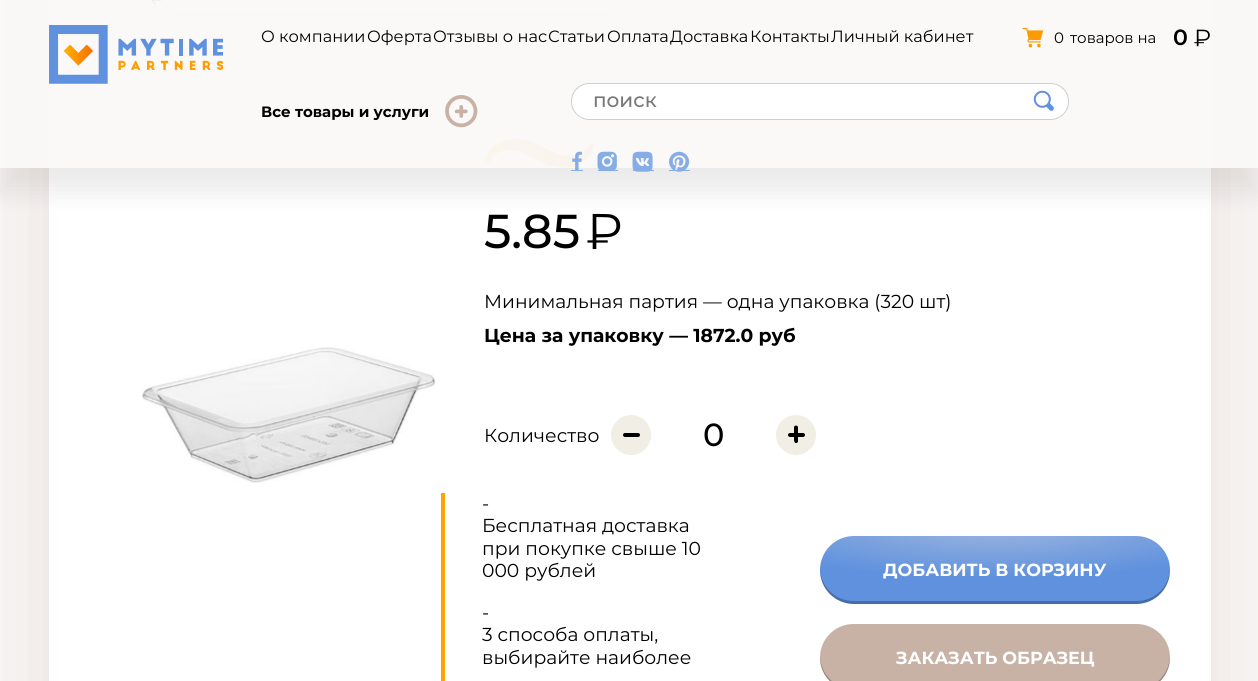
#include <cairo.h>
#include <math.h>
#include <stddef.h>

typedef struct { double x, y; const char *s; } line_t;

static void ink(cairo_t *ctx, unsigned color) {
    cairo_set_source_rgb(ctx, (color >> 16) / 255.0, (color >> 8 & 255) / 255.0, (color & 255) / 255.0);
}

static void round_path(cairo_t *ctx, double x, double y, double w, double h, double r) {
    cairo_new_sub_path(ctx);
    cairo_arc(ctx, x + w - r, y + h - r, r, 0, M_PI / 2);
    cairo_arc(ctx, x + r, y + h - r, r, M_PI / 2, M_PI);
    cairo_arc(ctx, x + r, y + r, r, M_PI, 1.5 * M_PI);
    cairo_arc(ctx, x + w - r, y + r, r, 1.5 * M_PI, 2 * M_PI);
    cairo_close_path(ctx);
}

static void blur_box(cairo_t *ctx, double x, double y, double w, double h, double r, double blur, double alpha) {
    cairo_push_group_with_content(ctx, CAIRO_CONTENT_ALPHA);
    cairo_set_operator(ctx, CAIRO_OPERATOR_SOURCE);
    for (int i = 15; i >= -15 && fmin(w, h) + blur * i / 3 > 0; i -= 2) {
        double e = blur * i / 6;
        cairo_set_source_rgba(ctx, 0, 0, 0, alpha * erfc((i - 1) / 8.5) / 2);
        round_path(ctx, x - e, y - e, w + 2 * e, h + 2 * e, fmax(0, fmin(r + e + blur * .6, fmin(w, h) / 2 + e)));
        cairo_fill(ctx);
    }
    cairo_pattern_t *soft = cairo_pop_group(ctx);
    cairo_mask(ctx, soft);
    cairo_pattern_destroy(soft);
}

static void paste(cairo_t *ctx, const char *path, double x, double y, double w, double h) {
    cairo_surface_t *image = cairo_image_surface_create_from_png(path);
    cairo_save(ctx);
    cairo_set_source_surface(ctx, image, x, y);
    cairo_rectangle(ctx, x, y, w, h);
    cairo_fill(ctx);
    cairo_restore(ctx);
    cairo_surface_destroy(image);
}

int main(void) {
    cairo_surface_t *surface = cairo_image_surface_create(CAIRO_FORMAT_RGB24, 1258, 681);
    cairo_t *ctx = cairo_create(surface);
    cairo_font_options_t *options = cairo_font_options_create();
    cairo_font_options_set_hint_metrics(options, CAIRO_HINT_METRICS_OFF);
    cairo_font_options_set_hint_style(options, CAIRO_HINT_STYLE_NONE);
    cairo_set_font_options(ctx, options);
    cairo_set_miter_limit(ctx, 4);
    cairo_pattern_t *gradient;
    ink(ctx, 0xF8F6F4);
    cairo_paint(ctx);
    ink(ctx, 0xEAE2DE);
    blur_box(ctx, 49, -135, 1162, 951, 15, 40, 1);
    ink(ctx, 0xFFFFFF);
    cairo_rectangle(ctx, 49, 0, 1162, 681);
    cairo_fill(ctx);
    paste(ctx, "media/10.png", 151, 0, 11, 5);
    ink(ctx, 0xCCCCCC);
    cairo_rectangle(ctx, 170, 14, 444, 1);
    cairo_fill(ctx);
    gradient = cairo_pattern_create_linear(485, 153, 594, 153);
    cairo_pattern_add_color_stop_rgba(gradient, 0.06, 1, 0.682, 0, 1);
    cairo_pattern_add_color_stop_rgba(gradient, 1, 0.976, 0.424, 0, 1);
    cairo_set_source(ctx, gradient);
    cairo_pattern_destroy(gradient);
    cairo_new_path(ctx);
    cairo_move_to(ctx, 516, 139);
    cairo_curve_to(ctx, 521, 139, 526, 140, 530, 141);
    cairo_line_to(ctx, 558, 154);
    cairo_curve_to(ctx, 571, 158, 585, 156, 590, 143);
    cairo_line_to(ctx, 594, 144);
    cairo_curve_to(ctx, 593, 152, 588, 159, 581, 163);
    cairo_curve_to(ctx, 573, 168, 562, 169, 552, 166);
    cairo_curve_to(ctx, 541, 163, 531, 156, 521, 152);
    cairo_curve_to(ctx, 508, 148, 494, 150, 489, 163);
    cairo_line_to(ctx, 485, 162);
    cairo_curve_to(ctx, 487, 147, 501, 139, 516, 139);
    cairo_close_path(ctx);
    cairo_fill(ctx);
    paste(ctx, "media/12.png", 587, 213, 34, 36);
    cairo_save(ctx);
    cairo_set_fill_rule(ctx, CAIRO_FILL_RULE_EVEN_ODD);
    cairo_new_path(ctx);
    cairo_move_to(ctx, 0, 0);
    cairo_line_to(ctx, 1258, 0);
    cairo_line_to(ctx, 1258, 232);
    cairo_line_to(ctx, 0, 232);
    cairo_close_path(ctx);
    cairo_move_to(ctx, 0, 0);
    cairo_line_to(ctx, 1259, 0);
    cairo_line_to(ctx, 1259, 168);
    cairo_line_to(ctx, 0, 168);
    cairo_close_path(ctx);
    cairo_clip(ctx);
    ink(ctx, 0x000000);
    blur_box(ctx, 0, 25, 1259, 168, 0, 12.5, 0.08);
    cairo_restore(ctx);
    cairo_set_source_rgba(ctx, 0.98, 0.973, 0.969, 0.96);
    cairo_rectangle(ctx, 0, 0, 1258, 168);
    cairo_fill(ctx);
    paste(ctx, "media/1.png", 49, 25, 174, 59);
    cairo_select_font_face(ctx, "Montserrat", CAIRO_FONT_SLANT_NORMAL, CAIRO_FONT_WEIGHT_NORMAL);
    cairo_set_font_size(ctx, 16.25);
    ink(ctx, 0x000000);
    {
        static const line_t items[] = {
            {261, 42, "О компании"},
            {367, 42, "Оферта"},
            {433, 42, "Отзывы о нас"},
            {548, 42, "Статьи"},
            {607, 42, "Оплата"},
            {670, 42, "Доставка"},
            {750, 42, "Контакты"},
            {831, 42, "Личный кабинет"},
        };
        for (size_t i = 0; i < sizeof items / sizeof *items; i++) {
            cairo_move_to(ctx, items[i].x, items[i].y);
            cairo_show_text(ctx, items[i].s);
        }
    }
    paste(ctx, "media/2.png", 1022, 28, 22, 20);
    cairo_set_font_size(ctx, 15);
    cairo_move_to(ctx, 1054, 43);
    cairo_show_text(ctx, "0");
    cairo_move_to(ctx, 1070, 43);
    cairo_show_text(ctx, "товаров на");
    cairo_select_font_face(ctx, "Montserrat SemiBold", CAIRO_FONT_SLANT_NORMAL, CAIRO_FONT_WEIGHT_NORMAL);
    cairo_set_font_size(ctx, 22);
    cairo_move_to(ctx, 1173, 45);
    cairo_show_text(ctx, "0");
    paste(ctx, "media/3.png", 1194, 29, 16, 18);
    ink(ctx, 0xFFFFFF);
    round_path(ctx, 571, 83, 498, 37, 18.5);
    cairo_fill(ctx);
    round_path(ctx, 571.5, 83.5, 497, 36, 18);
    cairo_set_source_rgba(ctx, 0, 0, 0, 0.19);
    cairo_set_line_width(ctx, 1);
    cairo_stroke(ctx);
    cairo_select_font_face(ctx, "Montserrat Medium", CAIRO_FONT_SLANT_NORMAL, CAIRO_FONT_WEIGHT_NORMAL);
    cairo_set_font_size(ctx, 20);
    ink(ctx, 0x787878);
    cairo_move_to(ctx, 593, 107);
    cairo_show_text(ctx, "поиск");
    paste(ctx, "media/4.png", 1033, 90, 21, 21);
    ink(ctx, 0x87ADE6);
    cairo_rectangle(ctx, 571, 170, 12, 1);
    cairo_fill(ctx);
    paste(ctx, "media/5.png", 572, 151, 10, 19);
    cairo_rectangle(ctx, 598, 170, 20, 1);
    cairo_fill(ctx);
    paste(ctx, "media/6.png", 597, 151, 20, 21);
    cairo_rectangle(ctx, 633, 170, 21, 1);
    cairo_fill(ctx);
    paste(ctx, "media/7.png", 632, 151, 21, 21);
    cairo_rectangle(ctx, 669, 170, 21, 1);
    cairo_fill(ctx);
    paste(ctx, "media/8.png", 669, 151, 21, 21);
    cairo_select_font_face(ctx, "Montserrat", CAIRO_FONT_SLANT_NORMAL, CAIRO_FONT_WEIGHT_BOLD);
    cairo_set_font_size(ctx, 15);
    ink(ctx, 0x000000);
    cairo_move_to(ctx, 261, 117);
    cairo_show_text(ctx, "Все товары и услуги");
    paste(ctx, "media/9.png", 445, 95, 33, 33);
    paste(ctx, "media/11.png", 142, 347, 293, 136);
    cairo_select_font_face(ctx, "Montserrat Medium", CAIRO_FONT_SLANT_NORMAL, CAIRO_FONT_WEIGHT_NORMAL);
    cairo_set_font_size(ctx, 47.5);
    cairo_move_to(ctx, 484, 248);
    cairo_show_text(ctx, "5.85");
    cairo_select_font_face(ctx, "Montserrat", CAIRO_FONT_SLANT_NORMAL, CAIRO_FONT_WEIGHT_NORMAL);
    cairo_set_font_size(ctx, 18.75);
    cairo_move_to(ctx, 484, 308);
    cairo_show_text(ctx, "Минимальная партия — одна упаковка (320 шт)");
    cairo_select_font_face(ctx, "Montserrat", CAIRO_FONT_SLANT_NORMAL, CAIRO_FONT_WEIGHT_BOLD);
    cairo_move_to(ctx, 484, 342);
    cairo_show_text(ctx, "Цена за упаковку — 1872.0 руб");
    cairo_select_font_face(ctx, "Montserrat", CAIRO_FONT_SLANT_NORMAL, CAIRO_FONT_WEIGHT_NORMAL);
    cairo_move_to(ctx, 484, 442);
    cairo_show_text(ctx, "Количество");
    ink(ctx, 0xF1EEE5);
    cairo_new_path(ctx);
    cairo_arc(ctx, 631, 435, 20, 0, 2 * M_PI);
    cairo_fill(ctx);
    ink(ctx, 0x000000);
    round_path(ctx, 623, 433, 17, 4, 2);
    cairo_fill(ctx);
    cairo_select_font_face(ctx, "Montserrat Medium", CAIRO_FONT_SLANT_NORMAL, CAIRO_FONT_WEIGHT_NORMAL);
    cairo_set_font_size(ctx, 32);
    cairo_move_to(ctx, 703, 446);
    cairo_show_text(ctx, "0");
    ink(ctx, 0xF1EEE5);
    cairo_new_path(ctx);
    cairo_arc(ctx, 796, 435, 20, 0, 2 * M_PI);
    cairo_fill(ctx);
    ink(ctx, 0x000000);
    round_path(ctx, 788, 433, 17, 4, 2);
    cairo_fill(ctx);
    cairo_new_path(ctx);
    cairo_move_to(ctx, 798, 427.5);
    cairo_line_to(ctx, 798, 442);
    cairo_curve_to(ctx, 797.5, 442.5, 797, 443, 796.5, 443);
    cairo_curve_to(ctx, 794, 443.5, 794, 440, 794, 439);
    cairo_line_to(ctx, 794, 427);
    cairo_curve_to(ctx, 794.5, 425, 798, 425, 798, 427.5);
    cairo_close_path(ctx);
    cairo_fill(ctx);
    ink(ctx, 0xFFA301);
    cairo_rectangle(ctx, 441, 493, 4, 188);
    cairo_fill(ctx);
    cairo_select_font_face(ctx, "Montserrat", CAIRO_FONT_SLANT_NORMAL, CAIRO_FONT_WEIGHT_NORMAL);
    cairo_set_font_size(ctx, 18.75);
    ink(ctx, 0x000000);
    {
        static const line_t items[] = {
            {482, 510, "-"},
            {482, 532, "Бесплатная доставка"},
            {482, 555, "при покупке свыше 10"},
            {482, 577, "000 рублей"},
            {482, 619, "-"},
            {482, 641, "3 способа оплаты,"},
            {482, 664, "выбирайте наиболее"},
        };
        for (size_t i = 0; i < sizeof items / sizeof *items; i++) {
            cairo_move_to(ctx, items[i].x, items[i].y);
            cairo_show_text(ctx, items[i].s);
        }
    }
    gradient = cairo_pattern_create_radial(0, 0, 0, 0, 0, 1);
    cairo_pattern_set_matrix(gradient, &(cairo_matrix_t){1.0 / 271, 0, 0, 1.0 / 52, -1.0 * 995 / 271, -1.0 * 526 / 52});
    cairo_pattern_add_color_stop_rgba(gradient, 0, 0.616, 0.714, 0.871, 1);
    cairo_pattern_add_color_stop_rgba(gradient, 1, 0.373, 0.569, 0.871, 1);
    cairo_set_source(ctx, gradient);
    cairo_pattern_destroy(gradient);
    round_path(ctx, 820, 536, 350, 68, 34);
    cairo_fill(ctx);
    cairo_set_source_rgba(ctx, 0, 0, 0, 0.25);
    cairo_new_path(ctx);
    cairo_move_to(ctx, 820, 569);
    cairo_line_to(ctx, 820, 570);
    cairo_curve_to(ctx, 820, 589, 835, 604, 854, 604);
    cairo_line_to(ctx, 1136, 604);
    cairo_curve_to(ctx, 1155, 604, 1170, 589, 1170, 570);
    cairo_line_to(ctx, 1170, 569);
    cairo_curve_to(ctx, 1169, 587, 1155, 601, 1136, 601);
    cairo_line_to(ctx, 854, 601);
    cairo_curve_to(ctx, 835, 601, 821, 587, 820, 569);
    cairo_close_path(ctx);
    cairo_fill(ctx);
    cairo_select_font_face(ctx, "Montserrat", CAIRO_FONT_SLANT_NORMAL, CAIRO_FONT_WEIGHT_BOLD);
    cairo_set_font_size(ctx, 17.5);
    ink(ctx, 0xFFFFFF);
    cairo_move_to(ctx, 883, 576);
    cairo_show_text(ctx, "ДОБАВИТЬ В КОРЗИНУ");
    ink(ctx, 0xC8B2A6);
    round_path(ctx, 820, 624, 350, 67, 33.5);
    cairo_fill(ctx);
    cairo_set_source_rgba(ctx, 0, 0, 0, 0.25);
    cairo_new_path(ctx);
    cairo_move_to(ctx, 820, 656);
    cairo_line_to(ctx, 820, 658);
    cairo_curve_to(ctx, 820, 676, 835, 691, 854, 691);
    cairo_line_to(ctx, 1136, 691);
    cairo_curve_to(ctx, 1155, 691, 1170, 676, 1170, 658);
    cairo_line_to(ctx, 1170, 656);
    cairo_curve_to(ctx, 1169, 675, 1155, 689, 1136, 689);
    cairo_line_to(ctx, 854, 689);
    cairo_curve_to(ctx, 835, 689, 821, 675, 820, 656);
    cairo_close_path(ctx);
    cairo_fill(ctx);
    ink(ctx, 0xFFFFFF);
    cairo_move_to(ctx, 896, 664);
    cairo_show_text(ctx, "ЗАКАЗАТЬ ОБРАЗЕЦ");
    cairo_surface_write_to_png(surface, "image.png");
    cairo_font_options_destroy(options);
    cairo_destroy(ctx);
    cairo_surface_destroy(surface);
    return 0;
}
